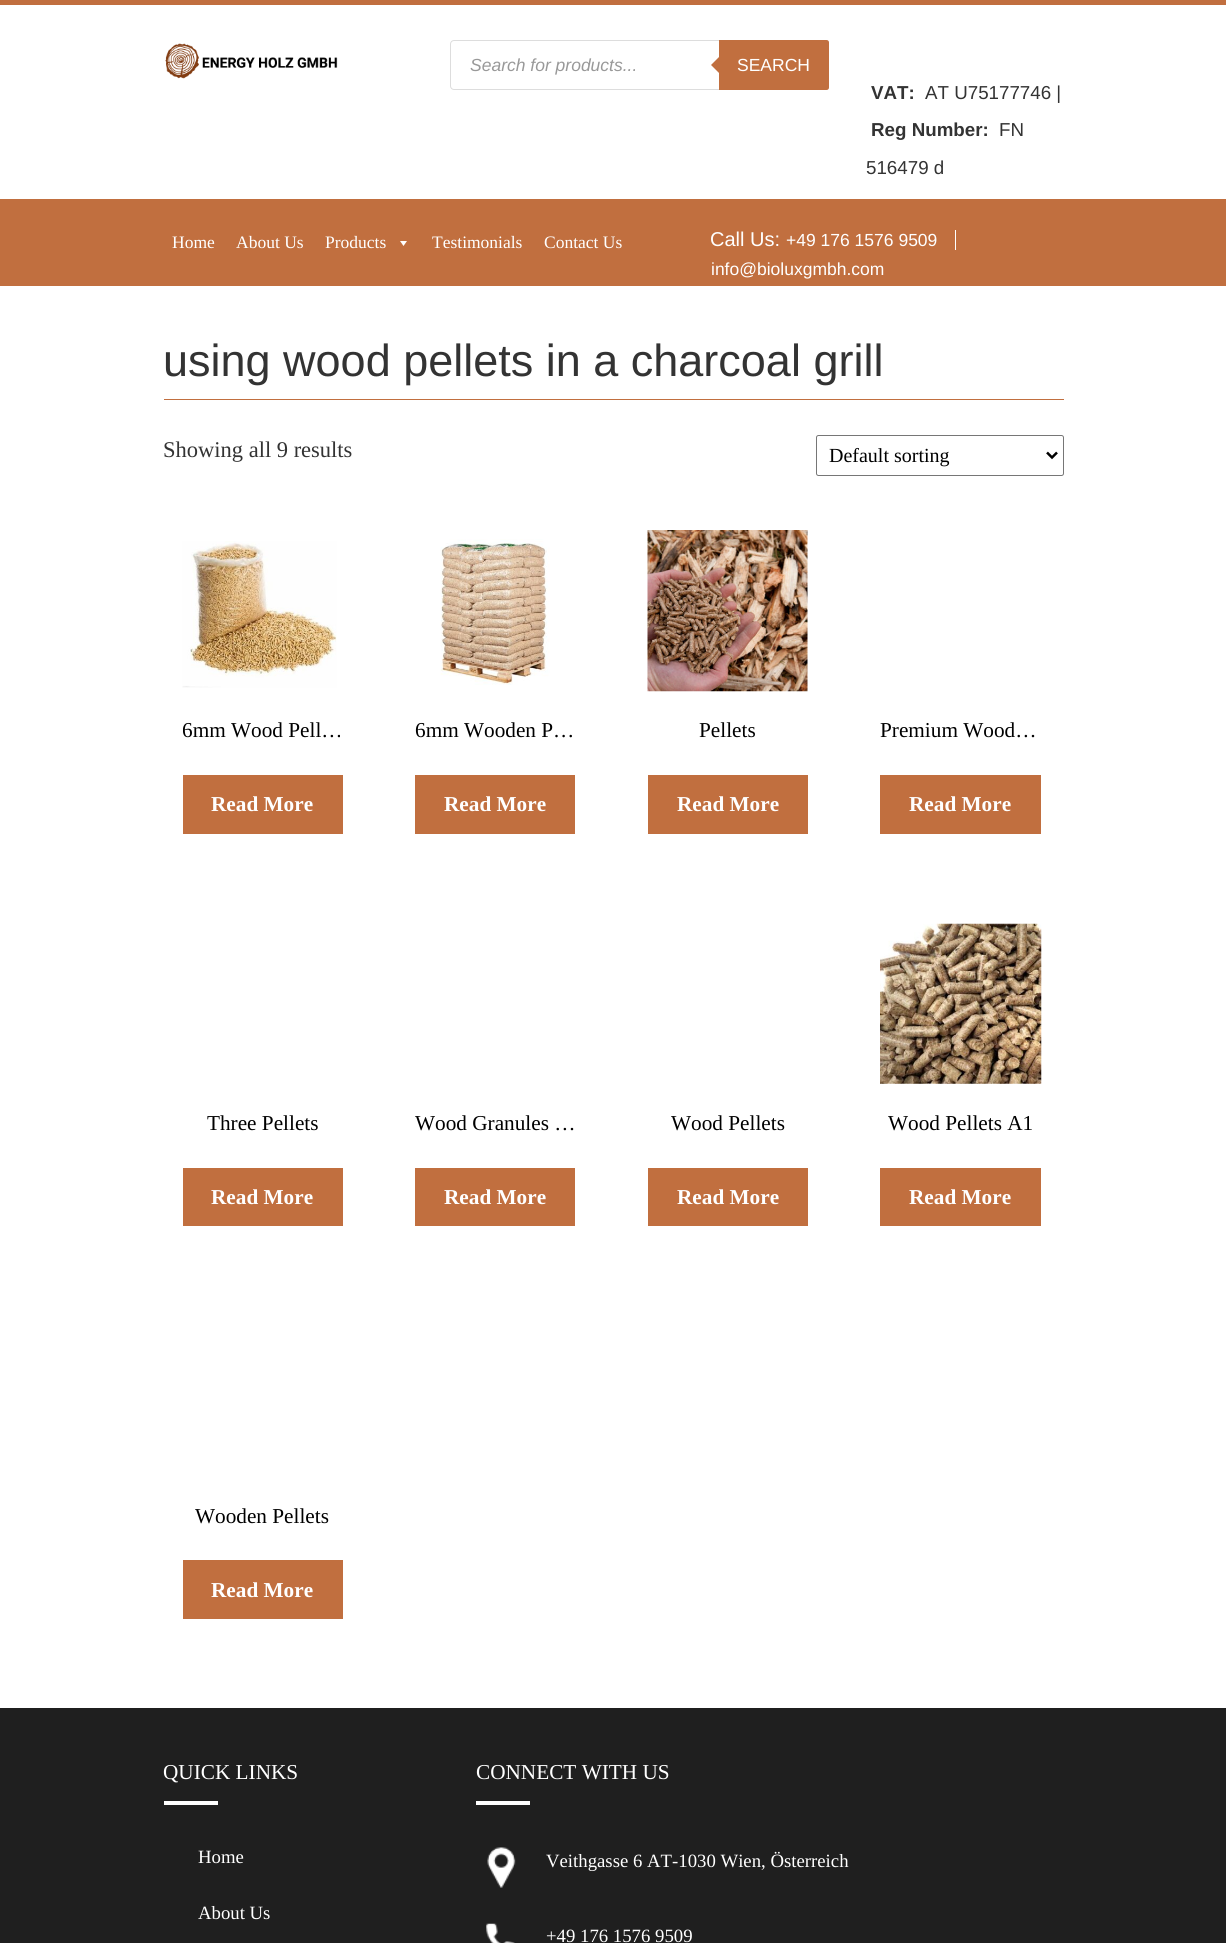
#include <cairo.h>
#include <math.h>
#include <stddef.h>

typedef struct { double x, y; const char *s; } line_t;

static void ink(cairo_t *ctx, unsigned color) {
    cairo_set_source_rgb(ctx, (color >> 16) / 255.0, (color >> 8 & 255) / 255.0, (color & 255) / 255.0);
}

static void round_path(cairo_t *ctx, double x, double y, double w, double h, double r) {
    cairo_new_sub_path(ctx);
    cairo_arc(ctx, x + w - r, y + h - r, r, 0, M_PI / 2);
    cairo_arc(ctx, x + r, y + h - r, r, M_PI / 2, M_PI);
    cairo_arc(ctx, x + r, y + r, r, M_PI, 1.5 * M_PI);
    cairo_arc(ctx, x + w - r, y + r, r, 1.5 * M_PI, 2 * M_PI);
    cairo_close_path(ctx);
}

static void paste(cairo_t *ctx, const char *path, double x, double y, double w, double h) {
    cairo_surface_t *image = cairo_image_surface_create_from_png(path);
    cairo_save(ctx);
    cairo_set_source_surface(ctx, image, x, y);
    cairo_rectangle(ctx, x, y, w, h);
    cairo_fill(ctx);
    cairo_restore(ctx);
    cairo_surface_destroy(image);
}

int main(void) {
    cairo_surface_t *surface = cairo_image_surface_create(CAIRO_FORMAT_RGB24, 1226, 1943);
    cairo_t *ctx = cairo_create(surface);
    cairo_font_options_t *options = cairo_font_options_create();
    cairo_font_options_set_hint_metrics(options, CAIRO_HINT_METRICS_OFF);
    cairo_font_options_set_hint_style(options, CAIRO_HINT_STYLE_NONE);
    cairo_set_font_options(ctx, options);
    cairo_set_miter_limit(ctx, 4);
    ink(ctx, 0xFFFFFF);
    cairo_paint(ctx);
    ink(ctx, 0xC16F3F);
    cairo_rectangle(ctx, 0, 0, 1226, 5);
    cairo_fill(ctx);
    paste(ctx, "media/1.png", 165, 43, 173, 36);
    round_path(ctx, 450.5, 40.5, 378, 49, 3.5);
    ink(ctx, 0xDDDDDD);
    cairo_set_line_width(ctx, 1);
    cairo_stroke(ctx);
    cairo_select_font_face(ctx, "Liberation Sans", CAIRO_FONT_SLANT_ITALIC, CAIRO_FONT_WEIGHT_NORMAL);
    cairo_set_font_size(ctx, 17.5);
    ink(ctx, 0x999999);
    cairo_move_to(ctx, 470, 71);
    cairo_show_text(ctx, "Search for products...");
    ink(ctx, 0xC16F3F);
    cairo_new_path(ctx);
    cairo_move_to(ctx, 719, 40);
    cairo_line_to(ctx, 826.5, 40);
    cairo_curve_to(ctx, 828, 40, 829, 41, 829, 42.5);
    cairo_line_to(ctx, 829, 87.5);
    cairo_curve_to(ctx, 829, 89, 828, 90, 826.5, 90);
    cairo_line_to(ctx, 719, 90);
    cairo_close_path(ctx);
    cairo_fill(ctx);
    cairo_new_path(ctx);
    cairo_move_to(ctx, 721, 55);
    cairo_line_to(ctx, 721, 75);
    cairo_line_to(ctx, 711, 65);
    cairo_close_path(ctx);
    cairo_fill(ctx);
    cairo_select_font_face(ctx, "Liberation Sans", CAIRO_FONT_SLANT_NORMAL, CAIRO_FONT_WEIGHT_NORMAL);
    ink(ctx, 0xFFFFFF);
    cairo_move_to(ctx, 737, 71);
    cairo_show_text(ctx, "SEARCH");
    cairo_select_font_face(ctx, "Liberation Sans", CAIRO_FONT_SLANT_NORMAL, CAIRO_FONT_WEIGHT_BOLD);
    cairo_set_font_size(ctx, 18.75);
    ink(ctx, 0x333333);
    cairo_move_to(ctx, 871, 99);
    cairo_show_text(ctx, "VAT:");
    cairo_select_font_face(ctx, "Liberation Sans", CAIRO_FONT_SLANT_NORMAL, CAIRO_FONT_WEIGHT_NORMAL);
    cairo_move_to(ctx, 925, 99);
    cairo_show_text(ctx, "AT U75177746 |");
    cairo_select_font_face(ctx, "Liberation Sans", CAIRO_FONT_SLANT_NORMAL, CAIRO_FONT_WEIGHT_BOLD);
    cairo_move_to(ctx, 871, 136);
    cairo_show_text(ctx, "Reg Number:");
    cairo_select_font_face(ctx, "Liberation Sans", CAIRO_FONT_SLANT_NORMAL, CAIRO_FONT_WEIGHT_NORMAL);
    cairo_move_to(ctx, 999, 136);
    cairo_show_text(ctx, "FN");
    cairo_move_to(ctx, 866, 174);
    cairo_show_text(ctx, "516479 d");
    ink(ctx, 0xC16F3F);
    cairo_rectangle(ctx, 0, 199, 1226, 87);
    cairo_fill(ctx);
    cairo_select_font_face(ctx, "Liberation Serif", CAIRO_FONT_SLANT_NORMAL, CAIRO_FONT_WEIGHT_NORMAL);
    cairo_set_font_size(ctx, 17.5);
    ink(ctx, 0xFFFFFF);
    {
        static const line_t items[] = {
            {172, 248, "Home"},
            {236, 248, "About Us"},
            {325, 248, "Products"},
        };
        for (size_t i = 0; i < sizeof items / sizeof *items; i++) {
            cairo_move_to(ctx, items[i].x, items[i].y);
            cairo_show_text(ctx, items[i].s);
        }
    }
    cairo_new_path(ctx);
    cairo_move_to(ctx, 407, 241);
    cairo_line_to(ctx, 403.5, 246);
    cairo_line_to(ctx, 400, 241);
    cairo_close_path(ctx);
    cairo_fill(ctx);
    cairo_move_to(ctx, 432, 248);
    cairo_show_text(ctx, "Testimonials");
    cairo_move_to(ctx, 544, 248);
    cairo_show_text(ctx, "Contact Us");
    cairo_select_font_face(ctx, "Liberation Sans", CAIRO_FONT_SLANT_NORMAL, CAIRO_FONT_WEIGHT_NORMAL);
    cairo_set_font_size(ctx, 20);
    cairo_move_to(ctx, 710, 246);
    cairo_show_text(ctx, "Call Us:");
    cairo_set_font_size(ctx, 17.5);
    cairo_move_to(ctx, 786, 246);
    cairo_show_text(ctx, "+49 176 1576 9509");
    cairo_rectangle(ctx, 955, 230, 1, 20);
    cairo_fill(ctx);
    cairo_move_to(ctx, 711, 275);
    cairo_show_text(ctx, "info@bioluxgmbh.com");
    ink(ctx, 0xC16F3F);
    cairo_rectangle(ctx, 164, 399, 900, 1);
    cairo_fill(ctx);
    cairo_set_font_size(ctx, 45);
    ink(ctx, 0x333333);
    cairo_move_to(ctx, 163, 376);
    cairo_show_text(ctx, "using wood pellets in a charcoal grill");
    cairo_select_font_face(ctx, "Liberation Serif", CAIRO_FONT_SLANT_NORMAL, CAIRO_FONT_WEIGHT_NORMAL);
    cairo_set_font_size(ctx, 22.5);
    cairo_move_to(ctx, 163, 457);
    cairo_show_text(ctx, "Showing all 9 results");
    round_path(ctx, 816.5, 435.5, 247, 40, 2);
    ink(ctx, 0x767676);
    cairo_stroke(ctx);
    cairo_new_path(ctx);
    cairo_move_to(ctx, 1047, 452.5);
    cairo_line_to(ctx, 1052, 457.5);
    cairo_line_to(ctx, 1057, 452.5);
    ink(ctx, 0x000000);
    cairo_set_line_width(ctx, 2.5);
    cairo_stroke(ctx);
    cairo_set_font_size(ctx, 20);
    cairo_move_to(ctx, 829, 462);
    cairo_show_text(ctx, "Default sorting");
    paste(ctx, "media/2.png", 182, 541, 155, 147);
    cairo_save(ctx);
    cairo_rectangle(ctx, 183, 709, 160, 45);
    cairo_clip(ctx);
    cairo_set_font_size(ctx, 21.25);
    cairo_move_to(ctx, 182, 737);
    cairo_show_text(ctx, "6mm Wood Pell…");
    cairo_restore(ctx);
    ink(ctx, 0xC16F3F);
    cairo_rectangle(ctx, 183, 775, 160, 59);
    cairo_fill(ctx);
    cairo_select_font_face(ctx, "Liberation Serif", CAIRO_FONT_SLANT_NORMAL, CAIRO_FONT_WEIGHT_BOLD);
    cairo_set_font_size(ctx, 21.25);
    ink(ctx, 0xFFFFFF);
    cairo_move_to(ctx, 211, 811);
    cairo_show_text(ctx, "Read More");
    paste(ctx, "media/3.png", 440, 539, 110, 146);
    cairo_select_font_face(ctx, "Liberation Serif", CAIRO_FONT_SLANT_NORMAL, CAIRO_FONT_WEIGHT_NORMAL);
    ink(ctx, 0x000000);
    cairo_move_to(ctx, 415, 737);
    cairo_show_text(ctx, "6mm Wooden P…");
    ink(ctx, 0xC16F3F);
    cairo_rectangle(ctx, 415, 775, 160, 59);
    cairo_fill(ctx);
    cairo_select_font_face(ctx, "Liberation Serif", CAIRO_FONT_SLANT_NORMAL, CAIRO_FONT_WEIGHT_BOLD);
    ink(ctx, 0xFFFFFF);
    cairo_move_to(ctx, 444, 811);
    cairo_show_text(ctx, "Read More");
    paste(ctx, "media/4.png", 647, 530, 161, 162);
    cairo_select_font_face(ctx, "Liberation Serif", CAIRO_FONT_SLANT_NORMAL, CAIRO_FONT_WEIGHT_NORMAL);
    ink(ctx, 0x000000);
    cairo_move_to(ctx, 699, 737);
    cairo_show_text(ctx, "Pellets");
    ink(ctx, 0xC16F3F);
    cairo_rectangle(ctx, 648, 775, 160, 59);
    cairo_fill(ctx);
    cairo_select_font_face(ctx, "Liberation Serif", CAIRO_FONT_SLANT_NORMAL, CAIRO_FONT_WEIGHT_BOLD);
    ink(ctx, 0xFFFFFF);
    cairo_move_to(ctx, 677, 811);
    cairo_show_text(ctx, "Read More");
    cairo_select_font_face(ctx, "Liberation Serif", CAIRO_FONT_SLANT_NORMAL, CAIRO_FONT_WEIGHT_NORMAL);
    ink(ctx, 0x000000);
    cairo_move_to(ctx, 880, 737);
    cairo_show_text(ctx, "Premium Wood…");
    ink(ctx, 0xC16F3F);
    cairo_rectangle(ctx, 880, 775, 161, 59);
    cairo_fill(ctx);
    cairo_select_font_face(ctx, "Liberation Serif", CAIRO_FONT_SLANT_NORMAL, CAIRO_FONT_WEIGHT_BOLD);
    ink(ctx, 0xFFFFFF);
    cairo_move_to(ctx, 909, 811);
    cairo_show_text(ctx, "Read More");
    cairo_select_font_face(ctx, "Liberation Serif", CAIRO_FONT_SLANT_NORMAL, CAIRO_FONT_WEIGHT_NORMAL);
    ink(ctx, 0x000000);
    cairo_move_to(ctx, 207, 1130);
    cairo_show_text(ctx, "Three Pellets");
    ink(ctx, 0xC16F3F);
    cairo_rectangle(ctx, 183, 1168, 160, 58);
    cairo_fill(ctx);
    cairo_select_font_face(ctx, "Liberation Serif", CAIRO_FONT_SLANT_NORMAL, CAIRO_FONT_WEIGHT_BOLD);
    ink(ctx, 0xFFFFFF);
    cairo_move_to(ctx, 211, 1204);
    cairo_show_text(ctx, "Read More");
    cairo_select_font_face(ctx, "Liberation Serif", CAIRO_FONT_SLANT_NORMAL, CAIRO_FONT_WEIGHT_NORMAL);
    ink(ctx, 0x000000);
    cairo_move_to(ctx, 415, 1130);
    cairo_show_text(ctx, "Wood Granules …");
    ink(ctx, 0xC16F3F);
    cairo_rectangle(ctx, 415, 1168, 160, 58);
    cairo_fill(ctx);
    cairo_select_font_face(ctx, "Liberation Serif", CAIRO_FONT_SLANT_NORMAL, CAIRO_FONT_WEIGHT_BOLD);
    ink(ctx, 0xFFFFFF);
    cairo_move_to(ctx, 444, 1204);
    cairo_show_text(ctx, "Read More");
    cairo_select_font_face(ctx, "Liberation Serif", CAIRO_FONT_SLANT_NORMAL, CAIRO_FONT_WEIGHT_NORMAL);
    ink(ctx, 0x000000);
    cairo_move_to(ctx, 671, 1130);
    cairo_show_text(ctx, "Wood Pellets");
    ink(ctx, 0xC16F3F);
    cairo_rectangle(ctx, 648, 1168, 160, 58);
    cairo_fill(ctx);
    cairo_select_font_face(ctx, "Liberation Serif", CAIRO_FONT_SLANT_NORMAL, CAIRO_FONT_WEIGHT_BOLD);
    ink(ctx, 0xFFFFFF);
    cairo_move_to(ctx, 677, 1204);
    cairo_show_text(ctx, "Read More");
    paste(ctx, "media/5.png", 880, 923, 162, 161);
    cairo_select_font_face(ctx, "Liberation Serif", CAIRO_FONT_SLANT_NORMAL, CAIRO_FONT_WEIGHT_NORMAL);
    ink(ctx, 0x000000);
    cairo_move_to(ctx, 888, 1130);
    cairo_show_text(ctx, "Wood Pellets A1");
    ink(ctx, 0xC16F3F);
    cairo_rectangle(ctx, 880, 1168, 161, 58);
    cairo_fill(ctx);
    cairo_select_font_face(ctx, "Liberation Serif", CAIRO_FONT_SLANT_NORMAL, CAIRO_FONT_WEIGHT_BOLD);
    ink(ctx, 0xFFFFFF);
    cairo_move_to(ctx, 909, 1204);
    cairo_show_text(ctx, "Read More");
    cairo_select_font_face(ctx, "Liberation Serif", CAIRO_FONT_SLANT_NORMAL, CAIRO_FONT_WEIGHT_NORMAL);
    ink(ctx, 0x000000);
    cairo_move_to(ctx, 195, 1523);
    cairo_show_text(ctx, "Wooden Pellets");
    ink(ctx, 0xC16F3F);
    cairo_rectangle(ctx, 183, 1560, 160, 59);
    cairo_fill(ctx);
    cairo_select_font_face(ctx, "Liberation Serif", CAIRO_FONT_SLANT_NORMAL, CAIRO_FONT_WEIGHT_BOLD);
    ink(ctx, 0xFFFFFF);
    cairo_move_to(ctx, 211, 1597);
    cairo_show_text(ctx, "Read More");
    ink(ctx, 0x1F1F1F);
    cairo_rectangle(ctx, 0, 1708, 1226, 235);
    cairo_fill(ctx);
    cairo_select_font_face(ctx, "Liberation Serif", CAIRO_FONT_SLANT_NORMAL, CAIRO_FONT_WEIGHT_NORMAL);
    ink(ctx, 0xFFFFFF);
    cairo_move_to(ctx, 163, 1779);
    cairo_show_text(ctx, "QUICK LINKS");
    cairo_rectangle(ctx, 164, 1801, 54, 4);
    cairo_fill(ctx);
    cairo_set_font_size(ctx, 18.75);
    cairo_move_to(ctx, 198, 1863);
    cairo_show_text(ctx, "Home");
    cairo_move_to(ctx, 198, 1919);
    cairo_show_text(ctx, "About Us");
    cairo_set_font_size(ctx, 21.25);
    cairo_move_to(ctx, 476, 1779);
    cairo_show_text(ctx, "CONNECT WITH US");
    cairo_rectangle(ctx, 476, 1801, 54, 4);
    cairo_fill(ctx);
    paste(ctx, "media/6.png", 487, 1847, 29, 41);
    cairo_set_font_size(ctx, 18.75);
    cairo_move_to(ctx, 546, 1867);
    cairo_show_text(ctx, "Veithgasse 6 AT-1030 Wien, Österreich");
    paste(ctx, "media/7.png", 486, 1923, 29, 20);
    cairo_move_to(ctx, 546, 1942);
    cairo_show_text(ctx, "+49 176 1576 9509");
    cairo_surface_write_to_png(surface, "image.png");
    cairo_font_options_destroy(options);
    cairo_destroy(ctx);
    cairo_surface_destroy(surface);
    return 0;
}
